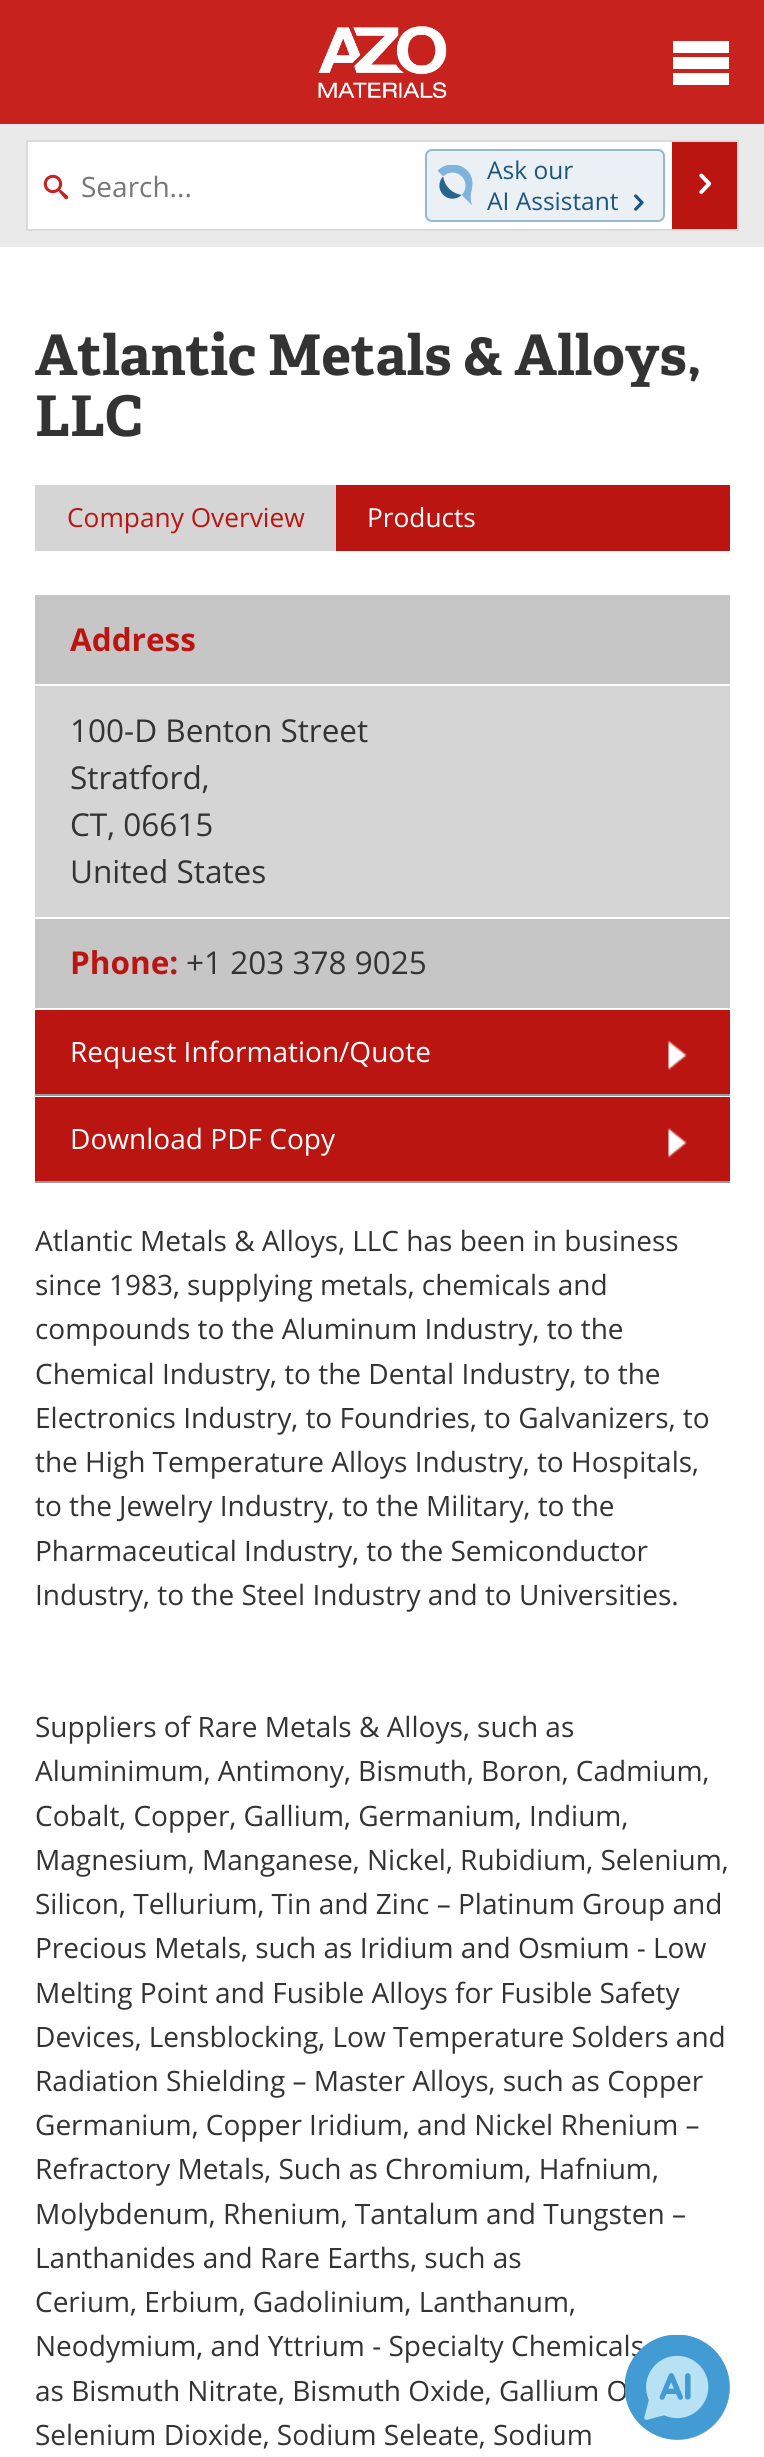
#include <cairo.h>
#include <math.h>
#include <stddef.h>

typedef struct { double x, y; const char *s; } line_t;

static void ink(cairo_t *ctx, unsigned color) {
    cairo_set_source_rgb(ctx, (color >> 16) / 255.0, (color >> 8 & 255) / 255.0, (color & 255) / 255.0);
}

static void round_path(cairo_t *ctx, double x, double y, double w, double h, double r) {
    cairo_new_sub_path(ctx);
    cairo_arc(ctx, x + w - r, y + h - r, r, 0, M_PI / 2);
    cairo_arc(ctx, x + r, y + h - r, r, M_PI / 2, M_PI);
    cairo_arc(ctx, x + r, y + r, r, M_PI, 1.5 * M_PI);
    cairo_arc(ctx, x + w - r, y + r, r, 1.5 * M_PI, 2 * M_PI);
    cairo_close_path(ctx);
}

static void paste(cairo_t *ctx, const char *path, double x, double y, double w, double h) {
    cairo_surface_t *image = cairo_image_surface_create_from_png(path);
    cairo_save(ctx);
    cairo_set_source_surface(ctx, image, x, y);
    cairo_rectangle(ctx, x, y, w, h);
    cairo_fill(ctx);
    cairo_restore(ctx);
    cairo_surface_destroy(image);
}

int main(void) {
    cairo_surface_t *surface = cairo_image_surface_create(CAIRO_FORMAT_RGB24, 764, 2457);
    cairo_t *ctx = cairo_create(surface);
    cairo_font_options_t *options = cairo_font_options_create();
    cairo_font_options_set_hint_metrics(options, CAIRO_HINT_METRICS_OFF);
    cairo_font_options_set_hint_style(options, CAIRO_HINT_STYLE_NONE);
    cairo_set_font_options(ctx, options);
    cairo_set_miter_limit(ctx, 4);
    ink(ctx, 0xFFFFFF);
    cairo_paint(ctx);
    ink(ctx, 0xEAEAEA);
    cairo_rectangle(ctx, 0, 124, 764, 123);
    cairo_fill(ctx);
    ink(ctx, 0xC8221E);
    cairo_rectangle(ctx, 0, 0, 764, 124);
    cairo_fill(ctx);
    paste(ctx, "media/1.png", 318, 26, 129, 73);
    ink(ctx, 0xFFFFFF);
    cairo_new_path(ctx);
    cairo_move_to(ctx, 673, 41);
    cairo_line_to(ctx, 729, 41);
    cairo_line_to(ctx, 729, 53);
    cairo_line_to(ctx, 673, 53);
    cairo_close_path(ctx);
    cairo_move_to(ctx, 673, 57);
    cairo_line_to(ctx, 729, 57);
    cairo_line_to(ctx, 729, 69);
    cairo_line_to(ctx, 673, 69);
    cairo_close_path(ctx);
    cairo_move_to(ctx, 673, 73);
    cairo_line_to(ctx, 729, 73);
    cairo_line_to(ctx, 729, 85);
    cairo_line_to(ctx, 673, 85);
    cairo_close_path(ctx);
    cairo_fill(ctx);
    cairo_rectangle(ctx, 28, 142, 644, 87);
    cairo_fill(ctx);
    cairo_rectangle(ctx, 27, 141, 711, 89);
    ink(ctx, 0xDBDBDB);
    cairo_stroke(ctx);
    paste(ctx, "media/2.png", 43, 174, 26, 26);
    cairo_select_font_face(ctx, "Open Sans", CAIRO_FONT_SLANT_NORMAL, CAIRO_FONT_WEIGHT_NORMAL);
    cairo_set_font_size(ctx, 28);
    ink(ctx, 0x777777);
    cairo_move_to(ctx, 81, 197);
    cairo_show_text(ctx, "Search...");
    ink(ctx, 0xEBF0F5);
    round_path(ctx, 426, 150, 238, 71, 6);
    cairo_fill_preserve(ctx);
    ink(ctx, 0x97B7CE);
    cairo_stroke(ctx);
    paste(ctx, "media/3.png", 438, 165, 35, 41);
    cairo_set_font_size(ctx, 24.5);
    ink(ctx, 0x1A567E);
    cairo_move_to(ctx, 487, 179);
    cairo_show_text(ctx, "Ask our");
    cairo_move_to(ctx, 487, 210);
    cairo_show_text(ctx, "AI Assistant");
    paste(ctx, "media/4.png", 634, 194, 10, 17);
    ink(ctx, 0xBB1511);
    cairo_rectangle(ctx, 672, 142, 65, 87);
    cairo_fill(ctx);
    paste(ctx, "media/5.png", 699, 173, 13, 21);
    cairo_select_font_face(ctx, "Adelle", CAIRO_FONT_SLANT_NORMAL, CAIRO_FONT_WEIGHT_BOLD);
    cairo_set_font_size(ctx, 56);
    ink(ctx, 0x333333);
    cairo_move_to(ctx, 35, 375);
    cairo_show_text(ctx, "Atlantic Metals & Alloys,");
    cairo_move_to(ctx, 35, 436);
    cairo_show_text(ctx, "LLC");
    ink(ctx, 0xBB1511);
    cairo_rectangle(ctx, 336, 485, 394, 66);
    cairo_fill(ctx);
    ink(ctx, 0xD5D5D5);
    cairo_rectangle(ctx, 35, 485, 301, 66);
    cairo_fill(ctx);
    cairo_select_font_face(ctx, "Open Sans", CAIRO_FONT_SLANT_NORMAL, CAIRO_FONT_WEIGHT_NORMAL);
    cairo_set_font_size(ctx, 26.25);
    ink(ctx, 0xBB1511);
    cairo_move_to(ctx, 67, 527);
    cairo_show_text(ctx, "Company Overview");
    ink(ctx, 0xFFFFFF);
    cairo_move_to(ctx, 367, 527);
    cairo_show_text(ctx, "Products");
    ink(ctx, 0xC6C6C6);
    cairo_rectangle(ctx, 35, 595, 695, 89);
    cairo_fill(ctx);
    cairo_select_font_face(ctx, "Open Sans", CAIRO_FONT_SLANT_NORMAL, CAIRO_FONT_WEIGHT_BOLD);
    cairo_set_font_size(ctx, 31.5);
    ink(ctx, 0xBB1511);
    cairo_move_to(ctx, 70, 651);
    cairo_show_text(ctx, "Address");
    ink(ctx, 0xD5D5D5);
    cairo_rectangle(ctx, 35, 686, 695, 231);
    cairo_fill(ctx);
    cairo_select_font_face(ctx, "Open Sans", CAIRO_FONT_SLANT_NORMAL, CAIRO_FONT_WEIGHT_NORMAL);
    ink(ctx, 0x333333);
    {
        static const line_t items[] = {
            {70, 742, "100-D Benton Street"},
            {70, 789, "Stratford,"},
            {70, 836, "CT, 06615"},
            {70, 883, "United States"},
        };
        for (size_t i = 0; i < sizeof items / sizeof *items; i++) {
            cairo_move_to(ctx, items[i].x, items[i].y);
            cairo_show_text(ctx, items[i].s);
        }
    }
    ink(ctx, 0xC6C6C6);
    cairo_rectangle(ctx, 35, 919, 695, 89);
    cairo_fill(ctx);
    cairo_select_font_face(ctx, "Open Sans", CAIRO_FONT_SLANT_NORMAL, CAIRO_FONT_WEIGHT_BOLD);
    ink(ctx, 0xBB1511);
    cairo_move_to(ctx, 70, 974);
    cairo_show_text(ctx, "Phone:");
    cairo_select_font_face(ctx, "Open Sans", CAIRO_FONT_SLANT_NORMAL, CAIRO_FONT_WEIGHT_NORMAL);
    ink(ctx, 0x333333);
    cairo_move_to(ctx, 186, 974);
    cairo_show_text(ctx, "+1 203 378 9025");
    ink(ctx, 0xBB1511);
    cairo_rectangle(ctx, 35, 1010, 695, 84);
    cairo_fill(ctx);
    paste(ctx, "media/6.png", 668, 1040, 19, 30);
    ink(ctx, 0x9A9A9A);
    cairo_rectangle(ctx, 35, 1094, 695, 2);
    cairo_fill(ctx);
    cairo_set_font_size(ctx, 28);
    ink(ctx, 0xFFFFFF);
    cairo_move_to(ctx, 70, 1062);
    cairo_show_text(ctx, "Request Information/Quote");
    ink(ctx, 0xBB1511);
    cairo_rectangle(ctx, 35, 1097, 695, 84);
    cairo_fill(ctx);
    paste(ctx, "media/7.png", 668, 1128, 19, 30);
    ink(ctx, 0x9A9A9A);
    cairo_rectangle(ctx, 35, 1181, 695, 2);
    cairo_fill(ctx);
    ink(ctx, 0xFFFFFF);
    cairo_move_to(ctx, 70, 1149);
    cairo_show_text(ctx, "Download PDF Copy");
    ink(ctx, 0x333333);
    {
        static const line_t items[] = {
            {35, 1251, "Atlantic Metals & Alloys, LLC has been in business"},
            {35, 1295, "since 1983, supplying metals, chemicals and"},
            {35, 1339, "compounds to the Aluminum Industry, to the"},
            {35, 1384, "Chemical Industry, to the Dental Industry, to the"},
            {35, 1428, "Electronics Industry, to Foundries, to Galvanizers, to"},
            {35, 1472, "the High Temperature Alloys Industry, to Hospitals,"},
            {35, 1516, "to the Jewelry Industry, to the Military, to the"},
            {35, 1561, "Pharmaceutical Industry, to the Semiconductor"},
            {35, 1605, "Industry, to the Steel Industry and to Universities."},
            {35, 1737, "Suppliers of Rare Metals & Alloys, such as"},
            {35, 1781, "Aluminimum, Antimony, Bismuth, Boron, Cadmium,"},
            {35, 1826, "Cobalt, Copper, Gallium, Germanium, Indium,"},
            {35, 1870, "Magnesium, Manganese, Nickel, Rubidium, Selenium,"},
            {35, 1914, "Silicon, Tellurium, Tin and Zinc – Platinum Group and"},
            {35, 1958, "Precious Metals, such as Iridium and Osmium - Low"},
            {35, 2003, "Melting Point and Fusible Alloys for Fusible Safety"},
            {35, 2047, "Devices, Lensblocking, Low Temperature Solders and"},
            {35, 2091, "Radiation Shielding – Master Alloys, such as Copper"},
            {35, 2135, "Germanium, Copper Iridium, and Nickel Rhenium –"},
            {35, 2179, "Refractory Metals, Such as Chromium, Hafnium,"},
            {35, 2224, "Molybdenum, Rhenium, Tantalum and Tungsten –"},
            {35, 2268, "Lanthanides and Rare Earths, such as"},
            {35, 2312, "Cerium, Erbium, Gadolinium, Lanthanum,"},
            {35, 2356, "Neodymium, and Yttrium - Specialty Chemicals"},
            {35, 2401, "as Bismuth Nitrate, Bismuth Oxide, Gallium O"},
            {35, 2445, "Selenium Dioxide, Sodium Seleate, Sodium"},
        };
        for (size_t i = 0; i < sizeof items / sizeof *items; i++) {
            cairo_move_to(ctx, items[i].x, items[i].y);
            cairo_show_text(ctx, items[i].s);
        }
    }
    ink(ctx, 0x7FB3DB);
    cairo_new_path(ctx);
    cairo_arc(ctx, 677.5, 2387.5, 52.5, 0, 2 * M_PI);
    cairo_fill(ctx);
    paste(ctx, "media/8.png", 625, 2335, 105, 105);
    cairo_surface_write_to_png(surface, "image.png");
    cairo_font_options_destroy(options);
    cairo_destroy(ctx);
    cairo_surface_destroy(surface);
    return 0;
}
